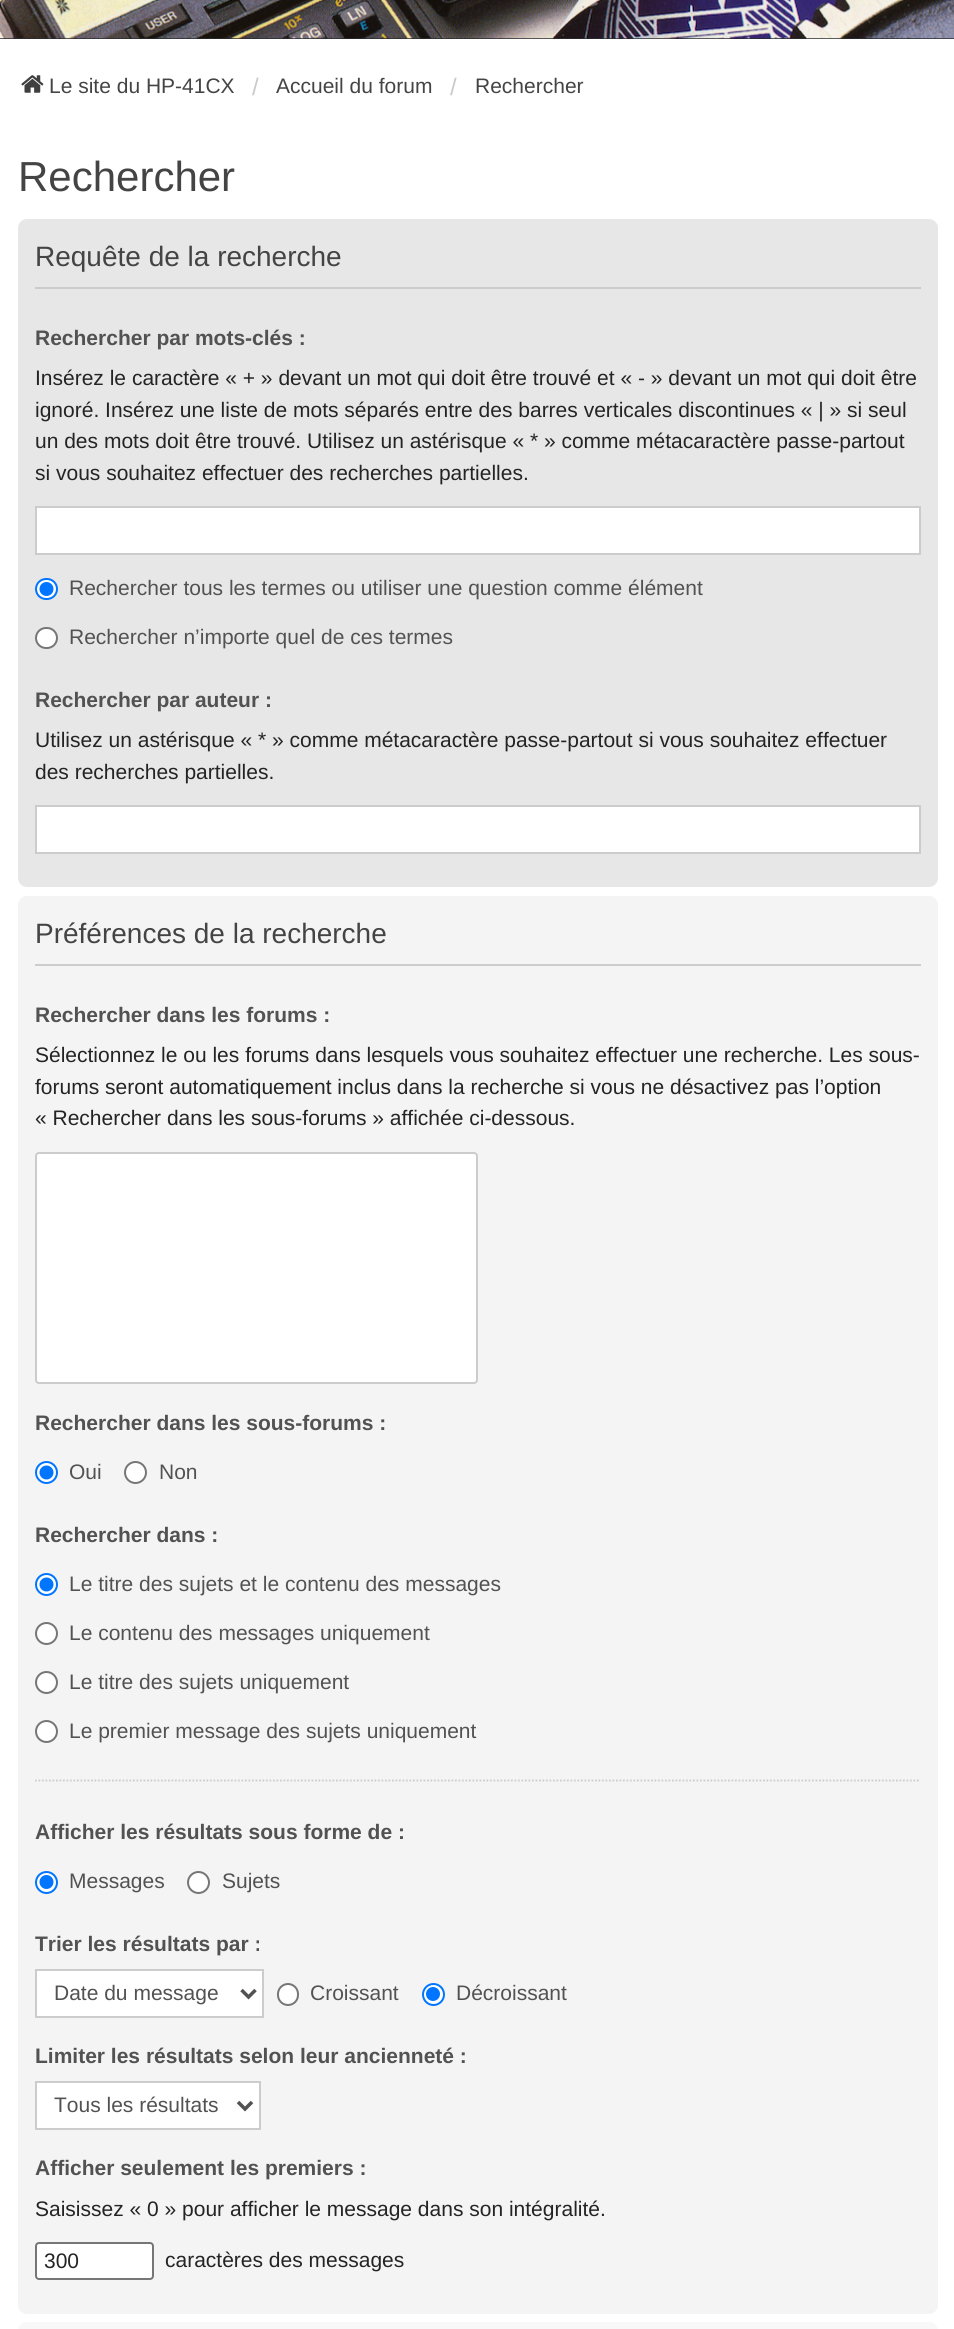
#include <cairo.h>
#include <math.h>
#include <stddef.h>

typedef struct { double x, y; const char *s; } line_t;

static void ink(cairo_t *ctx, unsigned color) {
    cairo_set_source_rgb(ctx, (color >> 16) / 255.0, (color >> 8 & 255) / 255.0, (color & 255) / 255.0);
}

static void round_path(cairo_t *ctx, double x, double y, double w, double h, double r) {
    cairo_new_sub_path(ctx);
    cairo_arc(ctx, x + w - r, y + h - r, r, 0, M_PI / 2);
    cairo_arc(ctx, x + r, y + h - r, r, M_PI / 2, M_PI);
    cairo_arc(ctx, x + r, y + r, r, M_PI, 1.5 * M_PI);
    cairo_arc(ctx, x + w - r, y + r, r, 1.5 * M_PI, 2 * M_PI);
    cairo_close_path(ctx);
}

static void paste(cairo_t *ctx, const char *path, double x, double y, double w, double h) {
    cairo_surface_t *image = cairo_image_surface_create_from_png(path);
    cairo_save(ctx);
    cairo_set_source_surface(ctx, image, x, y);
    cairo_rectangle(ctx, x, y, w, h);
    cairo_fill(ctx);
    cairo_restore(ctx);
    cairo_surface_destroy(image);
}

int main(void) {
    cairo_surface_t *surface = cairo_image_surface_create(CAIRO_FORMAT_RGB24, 954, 2329);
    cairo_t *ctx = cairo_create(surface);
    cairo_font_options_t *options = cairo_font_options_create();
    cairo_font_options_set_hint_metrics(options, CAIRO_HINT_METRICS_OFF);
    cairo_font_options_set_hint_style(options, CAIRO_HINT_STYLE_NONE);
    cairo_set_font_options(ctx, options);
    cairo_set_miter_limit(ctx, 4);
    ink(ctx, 0xFFFFFF);
    cairo_paint(ctx);
    ink(ctx, 0x292C2F);
    cairo_rectangle(ctx, 0, 38, 954, 1);
    cairo_fill(ctx);
    paste(ctx, "media/1.png", 0, 0, 954, 39);
    paste(ctx, "media/2.png", 21, 75, 23, 18);
    cairo_select_font_face(ctx, "Liberation Sans", CAIRO_FONT_SLANT_NORMAL, CAIRO_FONT_WEIGHT_NORMAL);
    cairo_set_font_size(ctx, 21);
    ink(ctx, 0x444444);
    cairo_move_to(ctx, 49, 93);
    cairo_show_text(ctx, "Le site du HP-41CX");
    cairo_set_font_size(ctx, 24);
    ink(ctx, 0xCACACA);
    cairo_move_to(ctx, 252, 95);
    cairo_show_text(ctx, "/");
    cairo_set_font_size(ctx, 21);
    ink(ctx, 0x444444);
    cairo_move_to(ctx, 276, 93);
    cairo_show_text(ctx, "Accueil du forum");
    cairo_set_font_size(ctx, 24);
    ink(ctx, 0xCACACA);
    cairo_move_to(ctx, 450, 95);
    cairo_show_text(ctx, "/");
    cairo_set_font_size(ctx, 21);
    ink(ctx, 0x444444);
    cairo_move_to(ctx, 475, 93);
    cairo_show_text(ctx, "Rechercher");
    cairo_set_font_size(ctx, 42);
    cairo_move_to(ctx, 18, 191);
    cairo_show_text(ctx, "Rechercher");
    ink(ctx, 0xE7E7E7);
    round_path(ctx, 18, 219, 920, 668, 9);
    cairo_fill(ctx);
    ink(ctx, 0xCCCCCC);
    cairo_rectangle(ctx, 35, 287, 886, 2);
    cairo_fill(ctx);
    cairo_set_font_size(ctx, 28);
    ink(ctx, 0x444444);
    cairo_move_to(ctx, 35, 266);
    cairo_show_text(ctx, "Requête de la recherche");
    cairo_select_font_face(ctx, "Liberation Sans", CAIRO_FONT_SLANT_NORMAL, CAIRO_FONT_WEIGHT_BOLD);
    cairo_set_font_size(ctx, 21);
    ink(ctx, 0x525252);
    cairo_move_to(ctx, 35, 345);
    cairo_show_text(ctx, "Rechercher par mots-clés :");
    cairo_select_font_face(ctx, "Liberation Sans", CAIRO_FONT_SLANT_NORMAL, CAIRO_FONT_WEIGHT_NORMAL);
    ink(ctx, 0x242424);
    {
        static const line_t items[] = {
            {35, 385, "Insérez le caractère « + » devant un mot qui doit être trouvé et « - » devant un mot qui doit être"},
            {35, 417, "ignoré. Insérez une liste de mots séparés entre des barres verticales discontinues « | » si seul"},
            {35, 448, "un des mots doit être trouvé. Utilisez un astérisque « * » comme métacaractère passe-partout"},
            {35, 480, "si vous souhaitez effectuer des recherches partielles."},
        };
        for (size_t i = 0; i < sizeof items / sizeof *items; i++) {
            cairo_move_to(ctx, items[i].x, items[i].y);
            cairo_show_text(ctx, items[i].s);
        }
    }
    ink(ctx, 0xFFFFFF);
    cairo_rectangle(ctx, 36, 507, 884, 47);
    cairo_fill_preserve(ctx);
    ink(ctx, 0xCCCCCC);
    cairo_stroke(ctx);
    ink(ctx, 0xFFFFFF);
    round_path(ctx, 36, 579, 21, 20, 10);
    cairo_fill_preserve(ctx);
    ink(ctx, 0x0075FF);
    cairo_stroke(ctx);
    cairo_arc(ctx, 46.5, 589, 7, 0, 2 * M_PI);
    cairo_fill(ctx);
    ink(ctx, 0x525252);
    cairo_move_to(ctx, 69, 595);
    cairo_show_text(ctx, "Rechercher tous les termes ou utiliser une question comme élément");
    ink(ctx, 0xFFFFFF);
    round_path(ctx, 36, 628, 21, 20, 10);
    cairo_fill_preserve(ctx);
    ink(ctx, 0x767676);
    cairo_stroke(ctx);
    ink(ctx, 0x525252);
    cairo_move_to(ctx, 69, 644);
    cairo_show_text(ctx, "Rechercher n’importe quel de ces termes");
    cairo_select_font_face(ctx, "Liberation Sans", CAIRO_FONT_SLANT_NORMAL, CAIRO_FONT_WEIGHT_BOLD);
    cairo_move_to(ctx, 35, 707);
    cairo_show_text(ctx, "Rechercher par auteur :");
    cairo_select_font_face(ctx, "Liberation Sans", CAIRO_FONT_SLANT_NORMAL, CAIRO_FONT_WEIGHT_NORMAL);
    ink(ctx, 0x242424);
    cairo_move_to(ctx, 35, 747);
    cairo_show_text(ctx, "Utilisez un astérisque « * » comme métacaractère passe-partout si vous souhaitez effectuer");
    cairo_move_to(ctx, 35, 779);
    cairo_show_text(ctx, "des recherches partielles.");
    ink(ctx, 0xFFFFFF);
    cairo_rectangle(ctx, 36, 806, 884, 47);
    cairo_fill_preserve(ctx);
    ink(ctx, 0xCCCCCC);
    cairo_stroke(ctx);
    ink(ctx, 0xF4F4F4);
    round_path(ctx, 18, 896, 920, 1418, 9);
    cairo_fill(ctx);
    ink(ctx, 0xCCCCCC);
    cairo_rectangle(ctx, 35, 964, 886, 2);
    cairo_fill(ctx);
    cairo_set_font_size(ctx, 28);
    ink(ctx, 0x444444);
    cairo_move_to(ctx, 35, 943);
    cairo_show_text(ctx, "Préférences de la recherche");
    cairo_select_font_face(ctx, "Liberation Sans", CAIRO_FONT_SLANT_NORMAL, CAIRO_FONT_WEIGHT_BOLD);
    cairo_set_font_size(ctx, 21);
    ink(ctx, 0x525252);
    cairo_move_to(ctx, 35, 1022);
    cairo_show_text(ctx, "Rechercher dans les forums :");
    cairo_select_font_face(ctx, "Liberation Sans", CAIRO_FONT_SLANT_NORMAL, CAIRO_FONT_WEIGHT_NORMAL);
    ink(ctx, 0x242424);
    {
        static const line_t items[] = {
            {35, 1062, "Sélectionnez le ou les forums dans lesquels vous souhaitez effectuer une recherche. Les sous-"},
            {35, 1094, "forums seront automatiquement inclus dans la recherche si vous ne désactivez pas l’option"},
            {35, 1125, "« Rechercher dans les sous-forums » affichée ci-dessous."},
        };
        for (size_t i = 0; i < sizeof items / sizeof *items; i++) {
            cairo_move_to(ctx, items[i].x, items[i].y);
            cairo_show_text(ctx, items[i].s);
        }
    }
    ink(ctx, 0xFFFFFF);
    round_path(ctx, 36, 1153, 441, 230, 3);
    cairo_fill_preserve(ctx);
    ink(ctx, 0xCCCCCC);
    cairo_stroke(ctx);
    cairo_select_font_face(ctx, "Liberation Sans", CAIRO_FONT_SLANT_NORMAL, CAIRO_FONT_WEIGHT_BOLD);
    ink(ctx, 0x525252);
    cairo_move_to(ctx, 35, 1430);
    cairo_show_text(ctx, "Rechercher dans les sous-forums :");
    ink(ctx, 0xFFFFFF);
    cairo_new_path(ctx);
    cairo_arc(ctx, 46.5, 1472.5, 10.5, 0, 2 * M_PI);
    cairo_fill_preserve(ctx);
    ink(ctx, 0x0075FF);
    cairo_stroke(ctx);
    cairo_arc(ctx, 46.5, 1472.5, 7, 0, 2 * M_PI);
    cairo_fill(ctx);
    cairo_select_font_face(ctx, "Liberation Sans", CAIRO_FONT_SLANT_NORMAL, CAIRO_FONT_WEIGHT_NORMAL);
    ink(ctx, 0x525252);
    cairo_move_to(ctx, 69, 1479);
    cairo_show_text(ctx, "Oui");
    ink(ctx, 0xFFFFFF);
    cairo_new_path(ctx);
    cairo_arc(ctx, 135.5, 1472.5, 10.5, 0, 2 * M_PI);
    cairo_fill_preserve(ctx);
    ink(ctx, 0x767676);
    cairo_stroke(ctx);
    ink(ctx, 0x525252);
    cairo_move_to(ctx, 159, 1479);
    cairo_show_text(ctx, "Non");
    cairo_select_font_face(ctx, "Liberation Sans", CAIRO_FONT_SLANT_NORMAL, CAIRO_FONT_WEIGHT_BOLD);
    cairo_move_to(ctx, 35, 1542);
    cairo_show_text(ctx, "Rechercher dans :");
    ink(ctx, 0xFFFFFF);
    cairo_new_path(ctx);
    cairo_arc(ctx, 46.5, 1584.5, 10.5, 0, 2 * M_PI);
    cairo_fill_preserve(ctx);
    ink(ctx, 0x0075FF);
    cairo_stroke(ctx);
    cairo_arc(ctx, 46.5, 1584.5, 7, 0, 2 * M_PI);
    cairo_fill(ctx);
    cairo_select_font_face(ctx, "Liberation Sans", CAIRO_FONT_SLANT_NORMAL, CAIRO_FONT_WEIGHT_NORMAL);
    ink(ctx, 0x525252);
    cairo_move_to(ctx, 69, 1591);
    cairo_show_text(ctx, "Le titre des sujets et le contenu des messages");
    ink(ctx, 0xFFFFFF);
    cairo_new_path(ctx);
    cairo_arc(ctx, 46.5, 1633.5, 10.5, 0, 2 * M_PI);
    cairo_fill_preserve(ctx);
    ink(ctx, 0x767676);
    cairo_stroke(ctx);
    ink(ctx, 0x525252);
    cairo_move_to(ctx, 69, 1640);
    cairo_show_text(ctx, "Le contenu des messages uniquement");
    ink(ctx, 0xFFFFFF);
    cairo_new_path(ctx);
    cairo_arc(ctx, 46.5, 1682.5, 10.5, 0, 2 * M_PI);
    cairo_fill_preserve(ctx);
    ink(ctx, 0x767676);
    cairo_stroke(ctx);
    ink(ctx, 0x525252);
    cairo_move_to(ctx, 69, 1689);
    cairo_show_text(ctx, "Le titre des sujets uniquement");
    ink(ctx, 0xFFFFFF);
    cairo_new_path(ctx);
    cairo_arc(ctx, 46.5, 1731.5, 10.5, 0, 2 * M_PI);
    cairo_fill_preserve(ctx);
    ink(ctx, 0x767676);
    cairo_stroke(ctx);
    ink(ctx, 0x525252);
    cairo_move_to(ctx, 69, 1738);
    cairo_show_text(ctx, "Le premier message des sujets uniquement");
    cairo_new_path(ctx);
    cairo_move_to(ctx, 35, 1780.5);
    cairo_line_to(ctx, 920.5, 1780.5);
    ink(ctx, 0xCCCCCC);
    cairo_set_line_width(ctx, 1.8);
    cairo_set_dash(ctx, (double[]){1.75, 1.75}, 2, 0);
    cairo_stroke(ctx);
    cairo_select_font_face(ctx, "Liberation Sans", CAIRO_FONT_SLANT_NORMAL, CAIRO_FONT_WEIGHT_BOLD);
    ink(ctx, 0x525252);
    cairo_move_to(ctx, 35, 1839);
    cairo_show_text(ctx, "Afficher les résultats sous forme de :");
    ink(ctx, 0xFFFFFF);
    cairo_new_path(ctx);
    cairo_arc(ctx, 46.5, 1882.5, 10.5, 0, 2 * M_PI);
    cairo_fill_preserve(ctx);
    ink(ctx, 0x0075FF);
    cairo_set_line_width(ctx, 2);
    cairo_set_dash(ctx, NULL, 0, 0);
    cairo_stroke(ctx);
    cairo_arc(ctx, 46.5, 1882, 7, 0, 2 * M_PI);
    cairo_fill(ctx);
    cairo_select_font_face(ctx, "Liberation Sans", CAIRO_FONT_SLANT_NORMAL, CAIRO_FONT_WEIGHT_NORMAL);
    ink(ctx, 0x525252);
    cairo_move_to(ctx, 69, 1888);
    cairo_show_text(ctx, "Messages");
    ink(ctx, 0xFFFFFF);
    cairo_new_path(ctx);
    cairo_arc(ctx, 198.5, 1882.5, 10.5, 0, 2 * M_PI);
    cairo_fill_preserve(ctx);
    ink(ctx, 0x767676);
    cairo_stroke(ctx);
    ink(ctx, 0x525252);
    cairo_move_to(ctx, 222, 1888);
    cairo_show_text(ctx, "Sujets");
    cairo_select_font_face(ctx, "Liberation Sans", CAIRO_FONT_SLANT_NORMAL, CAIRO_FONT_WEIGHT_BOLD);
    cairo_move_to(ctx, 35, 1951);
    cairo_show_text(ctx, "Trier les résultats par :");
    ink(ctx, 0xFFFFFF);
    cairo_rectangle(ctx, 36, 1970, 227, 47);
    cairo_fill_preserve(ctx);
    ink(ctx, 0xCCCCCC);
    cairo_stroke(ctx);
    cairo_new_path(ctx);
    cairo_move_to(ctx, 241.5, 1990);
    cairo_line_to(ctx, 248.5, 1997);
    cairo_line_to(ctx, 255.5, 1990);
    ink(ctx, 0x525252);
    cairo_set_line_width(ctx, 3.5);
    cairo_stroke(ctx);
    cairo_select_font_face(ctx, "Liberation Sans", CAIRO_FONT_SLANT_NORMAL, CAIRO_FONT_WEIGHT_NORMAL);
    cairo_move_to(ctx, 54, 2000);
    cairo_show_text(ctx, "Date du message");
    ink(ctx, 0xFFFFFF);
    round_path(ctx, 278, 1984, 20, 21, 10);
    cairo_fill_preserve(ctx);
    ink(ctx, 0x767676);
    cairo_set_line_width(ctx, 2);
    cairo_stroke(ctx);
    ink(ctx, 0x525252);
    cairo_move_to(ctx, 310, 2000);
    cairo_show_text(ctx, "Croissant");
    ink(ctx, 0xFFFFFF);
    cairo_new_path(ctx);
    cairo_arc(ctx, 433.5, 1994.5, 10.5, 0, 2 * M_PI);
    cairo_fill_preserve(ctx);
    ink(ctx, 0x0075FF);
    cairo_stroke(ctx);
    cairo_arc(ctx, 433, 1994, 7, 0, 2 * M_PI);
    cairo_fill(ctx);
    ink(ctx, 0x525252);
    cairo_move_to(ctx, 456, 2000);
    cairo_show_text(ctx, "Décroissant");
    cairo_select_font_face(ctx, "Liberation Sans", CAIRO_FONT_SLANT_NORMAL, CAIRO_FONT_WEIGHT_BOLD);
    cairo_move_to(ctx, 35, 2063);
    cairo_show_text(ctx, "Limiter les résultats selon leur ancienneté :");
    ink(ctx, 0xFFFFFF);
    cairo_rectangle(ctx, 36, 2082, 224, 47);
    cairo_fill_preserve(ctx);
    ink(ctx, 0xCCCCCC);
    cairo_stroke(ctx);
    cairo_new_path(ctx);
    cairo_move_to(ctx, 238, 2102);
    cairo_line_to(ctx, 245, 2109);
    cairo_line_to(ctx, 252, 2102);
    ink(ctx, 0x525252);
    cairo_set_line_width(ctx, 3.5);
    cairo_stroke(ctx);
    cairo_select_font_face(ctx, "Liberation Sans", CAIRO_FONT_SLANT_NORMAL, CAIRO_FONT_WEIGHT_NORMAL);
    cairo_move_to(ctx, 54, 2112);
    cairo_show_text(ctx, "Tous les résultats");
    cairo_select_font_face(ctx, "Liberation Sans", CAIRO_FONT_SLANT_NORMAL, CAIRO_FONT_WEIGHT_BOLD);
    cairo_move_to(ctx, 35, 2175);
    cairo_show_text(ctx, "Afficher seulement les premiers :");
    cairo_select_font_face(ctx, "Liberation Sans", CAIRO_FONT_SLANT_NORMAL, CAIRO_FONT_WEIGHT_NORMAL);
    ink(ctx, 0x242424);
    cairo_move_to(ctx, 35, 2216);
    cairo_show_text(ctx, "Saisissez « 0 » pour afficher le message dans son intégralité.");
    ink(ctx, 0xFFFFFF);
    round_path(ctx, 36, 2243, 117, 36, 3);
    cairo_fill_preserve(ctx);
    ink(ctx, 0x767676);
    cairo_set_line_width(ctx, 2);
    cairo_stroke(ctx);
    ink(ctx, 0x242424);
    cairo_move_to(ctx, 44, 2268);
    cairo_show_text(ctx, "300");
    cairo_move_to(ctx, 165, 2267);
    cairo_show_text(ctx, "caractères des messages");
    ink(ctx, 0xF8F8F8);
    round_path(ctx, 18, 2322, 920, 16, 9);
    cairo_fill(ctx);
    cairo_surface_write_to_png(surface, "image.png");
    cairo_font_options_destroy(options);
    cairo_destroy(ctx);
    cairo_surface_destroy(surface);
    return 0;
}
